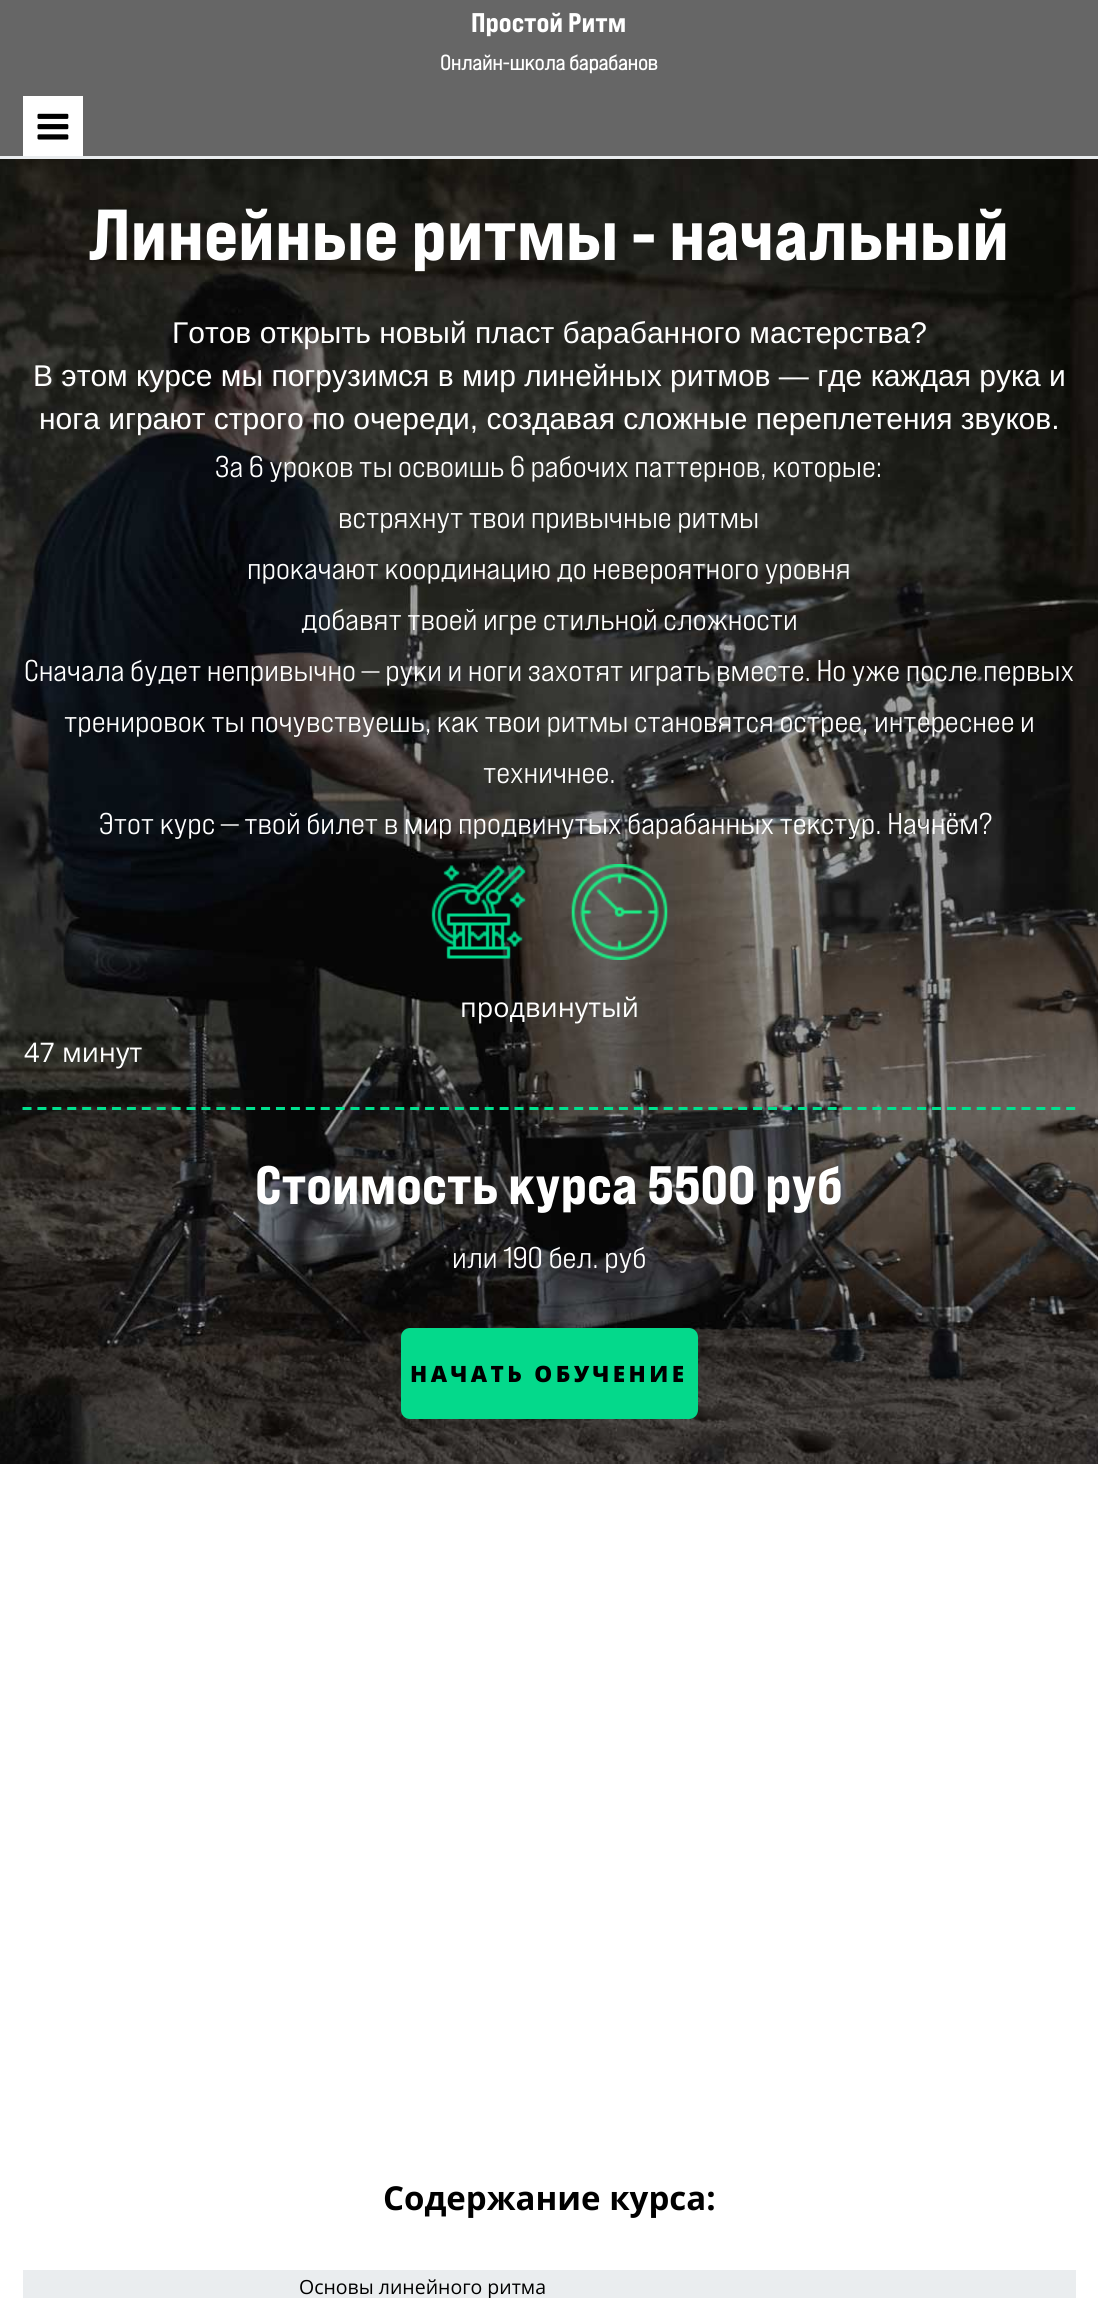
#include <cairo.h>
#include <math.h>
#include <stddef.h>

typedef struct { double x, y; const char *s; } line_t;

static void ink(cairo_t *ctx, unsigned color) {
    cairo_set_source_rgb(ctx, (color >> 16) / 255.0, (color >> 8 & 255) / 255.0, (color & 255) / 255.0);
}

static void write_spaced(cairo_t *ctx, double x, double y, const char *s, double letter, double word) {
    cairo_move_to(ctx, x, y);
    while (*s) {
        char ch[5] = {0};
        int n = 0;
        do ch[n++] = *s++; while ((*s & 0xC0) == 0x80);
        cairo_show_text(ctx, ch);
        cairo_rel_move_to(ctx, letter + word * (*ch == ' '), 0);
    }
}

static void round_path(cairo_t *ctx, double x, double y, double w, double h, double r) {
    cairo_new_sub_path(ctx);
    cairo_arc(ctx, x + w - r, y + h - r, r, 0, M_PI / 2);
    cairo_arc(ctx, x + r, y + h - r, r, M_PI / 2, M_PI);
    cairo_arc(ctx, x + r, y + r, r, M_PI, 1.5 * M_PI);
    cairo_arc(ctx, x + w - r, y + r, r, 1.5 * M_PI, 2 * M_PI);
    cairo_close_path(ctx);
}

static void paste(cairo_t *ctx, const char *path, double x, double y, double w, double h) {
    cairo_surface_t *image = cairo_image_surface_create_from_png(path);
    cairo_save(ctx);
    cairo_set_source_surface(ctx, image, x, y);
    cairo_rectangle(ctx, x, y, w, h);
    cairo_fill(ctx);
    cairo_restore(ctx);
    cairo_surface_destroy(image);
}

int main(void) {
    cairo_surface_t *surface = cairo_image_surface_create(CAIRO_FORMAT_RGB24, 1098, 2298);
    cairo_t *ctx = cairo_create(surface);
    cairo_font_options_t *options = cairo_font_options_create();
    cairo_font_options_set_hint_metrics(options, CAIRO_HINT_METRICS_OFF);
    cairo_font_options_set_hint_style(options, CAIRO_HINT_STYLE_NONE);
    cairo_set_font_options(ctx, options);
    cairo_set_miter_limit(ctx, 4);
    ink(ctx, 0xFFFFFF);
    cairo_paint(ctx);
    ink(ctx, 0xEAEDEF);
    cairo_rectangle(ctx, 0, 156, 1098, 3);
    cairo_fill(ctx);
    ink(ctx, 0x666666);
    cairo_rectangle(ctx, 0, 0, 1098, 156);
    cairo_fill(ctx);
    cairo_select_font_face(ctx, "Bebas Neue ExtraBold", CAIRO_FONT_SLANT_NORMAL, CAIRO_FONT_WEIGHT_NORMAL);
    cairo_set_font_size(ctx, 27);
    ink(ctx, 0xFFFFFF);
    cairo_move_to(ctx, 471, 32);
    cairo_show_text(ctx, "Простой Ритм");
    cairo_select_font_face(ctx, "Bebas Neue", CAIRO_FONT_SLANT_NORMAL, CAIRO_FONT_WEIGHT_BOLD);
    cairo_set_font_size(ctx, 21);
    cairo_move_to(ctx, 440, 70);
    cairo_show_text(ctx, "Онлайн-школа барабанов");
    cairo_rectangle(ctx, 23, 96, 60, 60);
    cairo_fill(ctx);
    paste(ctx, "media/1.png", 37, 113, 32, 27);
    paste(ctx, "media/2.png", 0, 159, 1098, 1305);
    cairo_select_font_face(ctx, "Bebas Neue ExtraBold", CAIRO_FONT_SLANT_NORMAL, CAIRO_FONT_WEIGHT_NORMAL);
    cairo_set_font_size(ctx, 72);
    cairo_move_to(ctx, 88, 260);
    cairo_show_text(ctx, "Линейные ритмы - начальный");
    cairo_select_font_face(ctx, "Liberation Sans", CAIRO_FONT_SLANT_NORMAL, CAIRO_FONT_WEIGHT_NORMAL);
    cairo_set_font_size(ctx, 30);
    {
        static const line_t items[] = {
            {172, 343, "Готов открыть новый пласт барабанного мастерства?"},
            {33, 386, "В этом курсе мы погрузимся в мир линейных ритмов — где каждая рука и"},
            {39, 429, "нога играют строго по очереди, создавая сложные переплетения звуков."},
        };
        for (size_t i = 0; i < sizeof items / sizeof *items; i++) {
            cairo_move_to(ctx, items[i].x, items[i].y);
            cairo_show_text(ctx, items[i].s);
        }
    }
    cairo_select_font_face(ctx, "Bebas Neue Medium", CAIRO_FONT_SLANT_NORMAL, CAIRO_FONT_WEIGHT_NORMAL);
    {
        static const line_t items[] = {
            {215, 477, "За 6 уроков ты освоишь 6 рабочих паттернов, которые:"},
            {338, 528, "встряхнут твои привычные ритмы"},
            {247, 579, "прокачают координацию до невероятного уровня"},
            {301, 630, "добавят твоей игре стильной сложности"},
            {24, 681, "Сначала будет непривычно — руки и ноги захотят играть вместе. Но уже после первых"},
            {64, 732, "тренировок ты почувствуешь, как твои ритмы становятся острее, интереснее и"},
            {483, 783, "техничнее."},
            {99, 834, "Этот курс — твой билет в мир продвинутых барабанных текстур. Начнём?"},
        };
        for (size_t i = 0; i < sizeof items / sizeof *items; i++) {
            cairo_move_to(ctx, items[i].x, items[i].y);
            cairo_show_text(ctx, items[i].s);
        }
    }
    paste(ctx, "media/3.png", 431, 865, 95, 94);
    paste(ctx, "media/4.png", 571, 864, 97, 96);
    cairo_select_font_face(ctx, "Open Sans", CAIRO_FONT_SLANT_NORMAL, CAIRO_FONT_WEIGHT_NORMAL);
    cairo_set_font_size(ctx, 27);
    cairo_move_to(ctx, 460, 1017);
    cairo_show_text(ctx, "продвинутый");
    cairo_move_to(ctx, 24, 1062);
    cairo_show_text(ctx, "47 минут");
    cairo_new_path(ctx);
    cairo_move_to(ctx, 22.5, 1108.5);
    cairo_line_to(ctx, 1075.5, 1108.5);
    ink(ctx, 0x00E18F);
    cairo_set_line_width(ctx, 3);
    cairo_set_dash(ctx, (double[]){9, 5.91}, 2, 0);
    cairo_stroke(ctx);
    cairo_select_font_face(ctx, "Bebas Neue ExtraBold", CAIRO_FONT_SLANT_NORMAL, CAIRO_FONT_WEIGHT_NORMAL);
    cairo_set_font_size(ctx, 54);
    ink(ctx, 0xFFFFFF);
    cairo_move_to(ctx, 255, 1204);
    cairo_show_text(ctx, "Стоимость курса 5500 руб");
    cairo_select_font_face(ctx, "Bebas Neue Medium", CAIRO_FONT_SLANT_NORMAL, CAIRO_FONT_WEIGHT_NORMAL);
    cairo_set_font_size(ctx, 30);
    cairo_move_to(ctx, 452, 1268);
    cairo_show_text(ctx, "или 190 бел. руб");
    ink(ctx, 0x04D98B);
    round_path(ctx, 401, 1328, 297, 91, 9);
    cairo_fill(ctx);
    cairo_select_font_face(ctx, "Open Sans ExtraBold", CAIRO_FONT_SLANT_NORMAL, CAIRO_FONT_WEIGHT_NORMAL);
    cairo_set_font_size(ctx, 22.5);
    ink(ctx, 0x000000);
    write_spaced(ctx, 410, 1382, "НАЧАТЬ ОБУЧЕНИЕ", 3.4, 0);
    cairo_select_font_face(ctx, "Open Sans", CAIRO_FONT_SLANT_NORMAL, CAIRO_FONT_WEIGHT_BOLD);
    cairo_set_font_size(ctx, 33);
    cairo_move_to(ctx, 383, 2210);
    cairo_show_text(ctx, "Содержание курса:");
    ink(ctx, 0xEAEDEF);
    cairo_rectangle(ctx, 23, 2270, 1053, 28);
    cairo_fill(ctx);
    cairo_select_font_face(ctx, "Open Sans", CAIRO_FONT_SLANT_NORMAL, CAIRO_FONT_WEIGHT_NORMAL);
    cairo_set_font_size(ctx, 19.5);
    ink(ctx, 0x000000);
    cairo_move_to(ctx, 299, 2294);
    cairo_show_text(ctx, "Основы линейного ритма");
    cairo_surface_write_to_png(surface, "image.png");
    cairo_font_options_destroy(options);
    cairo_destroy(ctx);
    cairo_surface_destroy(surface);
    return 0;
}
